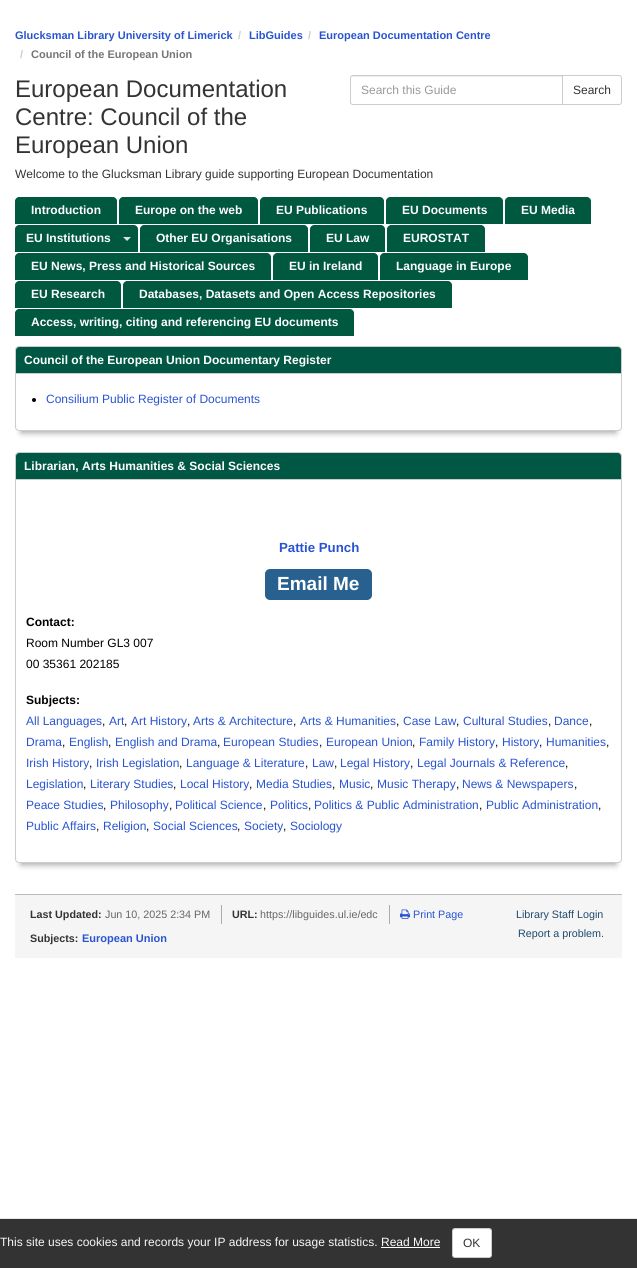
#include <cairo.h>
#include <math.h>
#include <stddef.h>

typedef struct { double x, y; const char *s; } line_t;
typedef struct { double x, y, w, h; unsigned color; } box_t;

static void ink(cairo_t *ctx, unsigned color) {
    cairo_set_source_rgb(ctx, (color >> 16) / 255.0, (color >> 8 & 255) / 255.0, (color & 255) / 255.0);
}

static void round_path(cairo_t *ctx, double x, double y, double w, double h, double r) {
    cairo_new_sub_path(ctx);
    cairo_arc(ctx, x + w - r, y + h - r, r, 0, M_PI / 2);
    cairo_arc(ctx, x + r, y + h - r, r, M_PI / 2, M_PI);
    cairo_arc(ctx, x + r, y + r, r, M_PI, 1.5 * M_PI);
    cairo_arc(ctx, x + w - r, y + r, r, 1.5 * M_PI, 2 * M_PI);
    cairo_close_path(ctx);
}

static void blur_box(cairo_t *ctx, double x, double y, double w, double h, double r, double blur, double alpha) {
    cairo_push_group_with_content(ctx, CAIRO_CONTENT_ALPHA);
    cairo_set_operator(ctx, CAIRO_OPERATOR_SOURCE);
    for (int i = 15; i >= -15 && fmin(w, h) + blur * i / 3 > 0; i -= 2) {
        double e = blur * i / 6;
        cairo_set_source_rgba(ctx, 0, 0, 0, alpha * erfc((i - 1) / 8.5) / 2);
        round_path(ctx, x - e, y - e, w + 2 * e, h + 2 * e, fmax(0, fmin(r + e + blur * .6, fmin(w, h) / 2 + e)));
        cairo_fill(ctx);
    }
    cairo_pattern_t *soft = cairo_pop_group(ctx);
    cairo_mask(ctx, soft);
    cairo_pattern_destroy(soft);
}

static void paste(cairo_t *ctx, const char *path, double x, double y, double w, double h) {
    cairo_surface_t *image = cairo_image_surface_create_from_png(path);
    cairo_save(ctx);
    cairo_set_source_surface(ctx, image, x, y);
    cairo_rectangle(ctx, x, y, w, h);
    cairo_fill(ctx);
    cairo_restore(ctx);
    cairo_surface_destroy(image);
}

int main(void) {
    cairo_surface_t *surface = cairo_image_surface_create(CAIRO_FORMAT_RGB24, 637, 1268);
    cairo_t *ctx = cairo_create(surface);
    cairo_font_options_t *options = cairo_font_options_create();
    cairo_font_options_set_hint_metrics(options, CAIRO_HINT_METRICS_OFF);
    cairo_font_options_set_hint_style(options, CAIRO_HINT_STYLE_NONE);
    cairo_set_font_options(ctx, options);
    cairo_set_miter_limit(ctx, 4);
    ink(ctx, 0xFFFFFF);
    cairo_paint(ctx);
    cairo_select_font_face(ctx, "Liberation Sans", CAIRO_FONT_SLANT_NORMAL, CAIRO_FONT_WEIGHT_BOLD);
    cairo_set_font_size(ctx, 11);
    ink(ctx, 0x2954D1);
    cairo_move_to(ctx, 15, 39);
    cairo_show_text(ctx, "Glucksman Library University of Limerick");
    ink(ctx, 0xCCCCCC);
    cairo_move_to(ctx, 238, 39);
    cairo_show_text(ctx, "/");
    ink(ctx, 0x2954D1);
    cairo_move_to(ctx, 249, 39);
    cairo_show_text(ctx, "LibGuides");
    ink(ctx, 0xCCCCCC);
    cairo_move_to(ctx, 308, 39);
    cairo_show_text(ctx, "/");
    ink(ctx, 0x2954D1);
    cairo_move_to(ctx, 319, 39);
    cairo_show_text(ctx, "European Documentation Centre");
    ink(ctx, 0xCCCCCC);
    cairo_move_to(ctx, 20, 58);
    cairo_show_text(ctx, "/");
    ink(ctx, 0x767676);
    cairo_move_to(ctx, 31, 58);
    cairo_show_text(ctx, "Council of the European Union");
    cairo_select_font_face(ctx, "Liberation Sans", CAIRO_FONT_SLANT_NORMAL, CAIRO_FONT_WEIGHT_NORMAL);
    cairo_set_font_size(ctx, 24);
    ink(ctx, 0x333333);
    {
        static const line_t items[] = {
            {15, 97, "European Documentation"},
            {15, 125, "Centre: Council of the"},
            {15, 153, "European Union"},
        };
        for (size_t i = 0; i < sizeof items / sizeof *items; i++) {
            cairo_move_to(ctx, items[i].x, items[i].y);
            cairo_show_text(ctx, items[i].s);
        }
    }
    cairo_set_font_size(ctx, 12);
    cairo_move_to(ctx, 15, 178);
    cairo_show_text(ctx, "Welcome to the Glucksman Library guide supporting European Documentation");
    ink(ctx, 0xECECEC);
    cairo_new_path(ctx);
    cairo_move_to(ctx, 353, 77);
    cairo_line_to(ctx, 562, 77);
    cairo_line_to(ctx, 562, 76);
    cairo_line_to(ctx, 353, 76);
    cairo_line_to(ctx, 352, 77);
    cairo_line_to(ctx, 351, 79);
    cairo_curve_to(ctx, 351, 78, 352, 77, 353, 77);
    cairo_close_path(ctx);
    cairo_fill(ctx);
    cairo_new_path(ctx);
    cairo_move_to(ctx, 353, 75.5);
    cairo_line_to(ctx, 562.5, 75.5);
    cairo_line_to(ctx, 562.5, 104.5);
    cairo_line_to(ctx, 353, 104.5);
    cairo_curve_to(ctx, 351.5, 104.5, 350.5, 103.5, 350.5, 102);
    cairo_line_to(ctx, 350.5, 78);
    cairo_curve_to(ctx, 350.5, 76.5, 351.5, 75.5, 353, 75.5);
    cairo_close_path(ctx);
    ink(ctx, 0xCCCCCC);
    cairo_set_line_width(ctx, 1);
    cairo_stroke(ctx);
    ink(ctx, 0x999999);
    cairo_move_to(ctx, 361, 94);
    cairo_show_text(ctx, "Search this Guide");
    ink(ctx, 0xFFFFFF);
    cairo_new_path(ctx);
    cairo_move_to(ctx, 562.5, 75.5);
    cairo_line_to(ctx, 619, 75.5);
    cairo_curve_to(ctx, 620.5, 75.5, 621.5, 76.5, 621.5, 78);
    cairo_line_to(ctx, 621.5, 102);
    cairo_curve_to(ctx, 621.5, 103.5, 620.5, 104.5, 619, 104.5);
    cairo_line_to(ctx, 562.5, 104.5);
    cairo_close_path(ctx);
    cairo_fill_preserve(ctx);
    ink(ctx, 0xCCCCCC);
    cairo_stroke(ctx);
    ink(ctx, 0x333333);
    cairo_move_to(ctx, 573, 94);
    cairo_show_text(ctx, "Search");
    ink(ctx, 0x00583F);
    cairo_new_path(ctx);
    cairo_move_to(ctx, 19, 197);
    cairo_line_to(ctx, 113, 197);
    cairo_curve_to(ctx, 115, 197, 117, 199, 117, 201);
    cairo_line_to(ctx, 117, 224);
    cairo_line_to(ctx, 15, 224);
    cairo_line_to(ctx, 15, 201);
    cairo_curve_to(ctx, 15, 199, 17, 197, 19, 197);
    cairo_close_path(ctx);
    cairo_fill(ctx);
    cairo_select_font_face(ctx, "Liberation Sans", CAIRO_FONT_SLANT_NORMAL, CAIRO_FONT_WEIGHT_BOLD);
    ink(ctx, 0xFFFFFF);
    cairo_move_to(ctx, 31, 214);
    cairo_show_text(ctx, "Introduction");
    ink(ctx, 0x00583F);
    cairo_new_path(ctx);
    cairo_move_to(ctx, 123, 197);
    cairo_line_to(ctx, 254, 197);
    cairo_curve_to(ctx, 256, 197, 258, 199, 258, 201);
    cairo_line_to(ctx, 258, 224);
    cairo_line_to(ctx, 119, 224);
    cairo_line_to(ctx, 119, 201);
    cairo_curve_to(ctx, 119, 199, 121, 197, 123, 197);
    cairo_close_path(ctx);
    cairo_fill(ctx);
    ink(ctx, 0xFFFFFF);
    cairo_move_to(ctx, 135, 214);
    cairo_show_text(ctx, "Europe on the web");
    ink(ctx, 0x00583F);
    cairo_new_path(ctx);
    cairo_move_to(ctx, 264, 197);
    cairo_line_to(ctx, 380, 197);
    cairo_curve_to(ctx, 382, 197, 384, 199, 384, 201);
    cairo_line_to(ctx, 384, 224);
    cairo_line_to(ctx, 260, 224);
    cairo_line_to(ctx, 260, 201);
    cairo_curve_to(ctx, 260, 199, 262, 197, 264, 197);
    cairo_close_path(ctx);
    cairo_fill(ctx);
    ink(ctx, 0xFFFFFF);
    cairo_move_to(ctx, 276, 214);
    cairo_show_text(ctx, "EU Publications");
    ink(ctx, 0x00583F);
    cairo_new_path(ctx);
    cairo_move_to(ctx, 390, 197);
    cairo_line_to(ctx, 499, 197);
    cairo_curve_to(ctx, 501, 197, 503, 199, 503, 201);
    cairo_line_to(ctx, 503, 224);
    cairo_line_to(ctx, 386, 224);
    cairo_line_to(ctx, 386, 201);
    cairo_curve_to(ctx, 386, 199, 388, 197, 390, 197);
    cairo_close_path(ctx);
    cairo_fill(ctx);
    ink(ctx, 0xFFFFFF);
    cairo_move_to(ctx, 402, 214);
    cairo_show_text(ctx, "EU Documents");
    ink(ctx, 0x00583F);
    cairo_new_path(ctx);
    cairo_move_to(ctx, 509, 197);
    cairo_line_to(ctx, 587, 197);
    cairo_curve_to(ctx, 589, 197, 591, 199, 591, 201);
    cairo_line_to(ctx, 591, 224);
    cairo_line_to(ctx, 505, 224);
    cairo_line_to(ctx, 505, 201);
    cairo_curve_to(ctx, 505, 199, 507, 197, 509, 197);
    cairo_close_path(ctx);
    cairo_fill(ctx);
    ink(ctx, 0xFFFFFF);
    cairo_move_to(ctx, 521, 214);
    cairo_show_text(ctx, "EU Media");
    ink(ctx, 0x00583F);
    cairo_new_path(ctx);
    cairo_move_to(ctx, 19, 225);
    cairo_line_to(ctx, 117, 225);
    cairo_line_to(ctx, 117, 252);
    cairo_line_to(ctx, 15, 252);
    cairo_line_to(ctx, 15, 229);
    cairo_curve_to(ctx, 15, 227, 17, 225, 19, 225);
    cairo_close_path(ctx);
    cairo_fill(ctx);
    ink(ctx, 0xFFFFFF);
    cairo_move_to(ctx, 26, 242);
    cairo_show_text(ctx, "EU Institutions");
    ink(ctx, 0x00583F);
    cairo_new_path(ctx);
    cairo_move_to(ctx, 117, 225);
    cairo_line_to(ctx, 134, 225);
    cairo_curve_to(ctx, 136, 225, 138, 227, 138, 229);
    cairo_line_to(ctx, 138, 252);
    cairo_line_to(ctx, 117, 252);
    cairo_close_path(ctx);
    cairo_fill(ctx);
    ink(ctx, 0xE1E1E1);
    cairo_new_path(ctx);
    cairo_move_to(ctx, 123, 237);
    cairo_line_to(ctx, 131, 237);
    cairo_line_to(ctx, 127, 241);
    cairo_close_path(ctx);
    cairo_fill(ctx);
    ink(ctx, 0x00583F);
    cairo_new_path(ctx);
    cairo_move_to(ctx, 144, 225);
    cairo_line_to(ctx, 304, 225);
    cairo_curve_to(ctx, 306, 225, 308, 227, 308, 229);
    cairo_line_to(ctx, 308, 252);
    cairo_line_to(ctx, 140, 252);
    cairo_line_to(ctx, 140, 229);
    cairo_curve_to(ctx, 140, 227, 142, 225, 144, 225);
    cairo_close_path(ctx);
    cairo_fill(ctx);
    ink(ctx, 0xFFFFFF);
    cairo_move_to(ctx, 156, 242);
    cairo_show_text(ctx, "Other EU Organisations");
    ink(ctx, 0x00583F);
    cairo_new_path(ctx);
    cairo_move_to(ctx, 314, 225);
    cairo_line_to(ctx, 381, 225);
    cairo_curve_to(ctx, 383, 225, 385, 227, 385, 229);
    cairo_line_to(ctx, 385, 252);
    cairo_line_to(ctx, 310, 252);
    cairo_line_to(ctx, 310, 229);
    cairo_curve_to(ctx, 310, 227, 312, 225, 314, 225);
    cairo_close_path(ctx);
    cairo_fill(ctx);
    ink(ctx, 0xFFFFFF);
    cairo_move_to(ctx, 326, 242);
    cairo_show_text(ctx, "EU Law");
    ink(ctx, 0x00583F);
    cairo_new_path(ctx);
    cairo_move_to(ctx, 391, 225);
    cairo_line_to(ctx, 481, 225);
    cairo_curve_to(ctx, 483, 225, 485, 227, 485, 229);
    cairo_line_to(ctx, 485, 252);
    cairo_line_to(ctx, 387, 252);
    cairo_line_to(ctx, 387, 229);
    cairo_curve_to(ctx, 387, 227, 389, 225, 391, 225);
    cairo_close_path(ctx);
    cairo_fill(ctx);
    ink(ctx, 0xFFFFFF);
    cairo_move_to(ctx, 403, 242);
    cairo_show_text(ctx, "EUROSTAT");
    ink(ctx, 0x00583F);
    cairo_new_path(ctx);
    cairo_move_to(ctx, 19, 253);
    cairo_line_to(ctx, 267, 253);
    cairo_curve_to(ctx, 269, 253, 271, 255, 271, 257);
    cairo_line_to(ctx, 271, 280);
    cairo_line_to(ctx, 15, 280);
    cairo_line_to(ctx, 15, 257);
    cairo_curve_to(ctx, 15, 255, 17, 253, 19, 253);
    cairo_close_path(ctx);
    cairo_fill(ctx);
    ink(ctx, 0xFFFFFF);
    cairo_move_to(ctx, 31, 270);
    cairo_show_text(ctx, "EU News, Press and Historical Sources");
    ink(ctx, 0x00583F);
    cairo_new_path(ctx);
    cairo_move_to(ctx, 277, 253);
    cairo_line_to(ctx, 374, 253);
    cairo_curve_to(ctx, 376, 253, 378, 255, 378, 257);
    cairo_line_to(ctx, 378, 280);
    cairo_line_to(ctx, 273, 280);
    cairo_line_to(ctx, 273, 257);
    cairo_curve_to(ctx, 273, 255, 275, 253, 277, 253);
    cairo_close_path(ctx);
    cairo_fill(ctx);
    ink(ctx, 0xFFFFFF);
    cairo_move_to(ctx, 289, 270);
    cairo_show_text(ctx, "EU in Ireland");
    ink(ctx, 0x00583F);
    cairo_new_path(ctx);
    cairo_move_to(ctx, 384, 253);
    cairo_line_to(ctx, 524, 253);
    cairo_curve_to(ctx, 526, 253, 528, 255, 528, 257);
    cairo_line_to(ctx, 528, 280);
    cairo_line_to(ctx, 380, 280);
    cairo_line_to(ctx, 380, 257);
    cairo_curve_to(ctx, 380, 255, 382, 253, 384, 253);
    cairo_close_path(ctx);
    cairo_fill(ctx);
    ink(ctx, 0xFFFFFF);
    cairo_move_to(ctx, 396, 270);
    cairo_show_text(ctx, "Language in Europe");
    ink(ctx, 0x00583F);
    cairo_new_path(ctx);
    cairo_move_to(ctx, 19, 281);
    cairo_line_to(ctx, 117, 281);
    cairo_curve_to(ctx, 119, 281, 121, 283, 121, 285);
    cairo_line_to(ctx, 121, 308);
    cairo_line_to(ctx, 15, 308);
    cairo_line_to(ctx, 15, 285);
    cairo_curve_to(ctx, 15, 283, 17, 281, 19, 281);
    cairo_close_path(ctx);
    cairo_fill(ctx);
    ink(ctx, 0xFFFFFF);
    cairo_move_to(ctx, 31, 298);
    cairo_show_text(ctx, "EU Research");
    ink(ctx, 0x00583F);
    cairo_new_path(ctx);
    cairo_move_to(ctx, 127, 281);
    cairo_line_to(ctx, 448, 281);
    cairo_curve_to(ctx, 450, 281, 452, 283, 452, 285);
    cairo_line_to(ctx, 452, 308);
    cairo_line_to(ctx, 123, 308);
    cairo_line_to(ctx, 123, 285);
    cairo_curve_to(ctx, 123, 283, 125, 281, 127, 281);
    cairo_close_path(ctx);
    cairo_fill(ctx);
    ink(ctx, 0xFFFFFF);
    cairo_move_to(ctx, 139, 298);
    cairo_show_text(ctx, "Databases, Datasets and Open Access Repositories");
    ink(ctx, 0x00583F);
    cairo_new_path(ctx);
    cairo_move_to(ctx, 19, 309);
    cairo_line_to(ctx, 350, 309);
    cairo_curve_to(ctx, 352, 309, 354, 311, 354, 313);
    cairo_line_to(ctx, 354, 336);
    cairo_line_to(ctx, 15, 336);
    cairo_line_to(ctx, 15, 313);
    cairo_curve_to(ctx, 15, 311, 17, 309, 19, 309);
    cairo_close_path(ctx);
    cairo_fill(ctx);
    ink(ctx, 0xFFFFFF);
    cairo_move_to(ctx, 31, 326);
    cairo_show_text(ctx, "Access, writing, citing and referencing EU documents");
    ink(ctx, 0xAAAAAA);
    blur_box(ctx, 21, 360, 595, 73, 0, 3, 1);
    ink(ctx, 0xFFFFFF);
    round_path(ctx, 15.5, 346.5, 606, 84, 3.5);
    cairo_fill_preserve(ctx);
    ink(ctx, 0xCCCCCC);
    cairo_stroke(ctx);
    ink(ctx, 0x005844);
    cairo_new_path(ctx);
    cairo_move_to(ctx, 19, 347);
    cairo_line_to(ctx, 618, 347);
    cairo_curve_to(ctx, 619.5, 347, 621, 348.5, 621, 350);
    cairo_line_to(ctx, 621, 374);
    cairo_line_to(ctx, 16, 374);
    cairo_line_to(ctx, 16, 350);
    cairo_curve_to(ctx, 16, 348.5, 17.5, 347, 19, 347);
    cairo_close_path(ctx);
    cairo_fill(ctx);
    ink(ctx, 0xCCCCCC);
    cairo_rectangle(ctx, 16, 373, 605, 1);
    cairo_fill(ctx);
    ink(ctx, 0xFFFFFF);
    cairo_move_to(ctx, 24, 364);
    cairo_show_text(ctx, "Council of the European Union Documentary Register");
    ink(ctx, 0x000000);
    cairo_new_path(ctx);
    cairo_arc(ctx, 34, 400, 2, 0, 2 * M_PI);
    cairo_fill(ctx);
    cairo_select_font_face(ctx, "Liberation Sans", CAIRO_FONT_SLANT_NORMAL, CAIRO_FONT_WEIGHT_NORMAL);
    ink(ctx, 0x2954D1);
    cairo_move_to(ctx, 46, 403);
    cairo_show_text(ctx, "Consilium Public Register of Documents");
    ink(ctx, 0xAAAAAA);
    blur_box(ctx, 21, 466, 595, 399, 0, 3, 1);
    ink(ctx, 0xFFFFFF);
    round_path(ctx, 15.5, 452.5, 606, 410, 3.5);
    cairo_fill_preserve(ctx);
    ink(ctx, 0xCCCCCC);
    cairo_stroke(ctx);
    ink(ctx, 0x005844);
    cairo_new_path(ctx);
    cairo_move_to(ctx, 19, 453);
    cairo_line_to(ctx, 618, 453);
    cairo_curve_to(ctx, 619.5, 453, 621, 454.5, 621, 456);
    cairo_line_to(ctx, 621, 480);
    cairo_line_to(ctx, 16, 480);
    cairo_line_to(ctx, 16, 456);
    cairo_curve_to(ctx, 16, 454.5, 17.5, 453, 19, 453);
    cairo_close_path(ctx);
    cairo_fill(ctx);
    ink(ctx, 0xCCCCCC);
    cairo_rectangle(ctx, 16, 479, 605, 1);
    cairo_fill(ctx);
    cairo_select_font_face(ctx, "Liberation Sans", CAIRO_FONT_SLANT_NORMAL, CAIRO_FONT_WEIGHT_BOLD);
    ink(ctx, 0xFFFFFF);
    cairo_move_to(ctx, 24, 470);
    cairo_show_text(ctx, "Librarian, Arts Humanities & Social Sciences");
    cairo_set_font_size(ctx, 13.25);
    ink(ctx, 0x2954D1);
    cairo_move_to(ctx, 279, 552);
    cairo_show_text(ctx, "Pattie Punch");
    ink(ctx, 0x286090);
    round_path(ctx, 265, 569, 107, 31, 5);
    cairo_fill(ctx);
    cairo_set_font_size(ctx, 19);
    ink(ctx, 0xFFFFFF);
    cairo_move_to(ctx, 277, 590);
    cairo_show_text(ctx, "Email Me");
    cairo_set_font_size(ctx, 12);
    ink(ctx, 0x000000);
    cairo_move_to(ctx, 26, 626);
    cairo_show_text(ctx, "Contact:");
    cairo_select_font_face(ctx, "Liberation Sans", CAIRO_FONT_SLANT_NORMAL, CAIRO_FONT_WEIGHT_NORMAL);
    cairo_move_to(ctx, 26, 647);
    cairo_show_text(ctx, "Room Number GL3 007");
    cairo_move_to(ctx, 26, 668);
    cairo_show_text(ctx, "00 35361 202185");
    cairo_select_font_face(ctx, "Liberation Sans", CAIRO_FONT_SLANT_NORMAL, CAIRO_FONT_WEIGHT_BOLD);
    cairo_move_to(ctx, 26, 704);
    cairo_show_text(ctx, "Subjects:");
    cairo_select_font_face(ctx, "Liberation Sans", CAIRO_FONT_SLANT_NORMAL, CAIRO_FONT_WEIGHT_NORMAL);
    ink(ctx, 0x2954D1);
    cairo_move_to(ctx, 26, 725);
    cairo_show_text(ctx, "All Languages");
    ink(ctx, 0x000000);
    cairo_move_to(ctx, 102, 725);
    cairo_show_text(ctx, ",");
    ink(ctx, 0x2954D1);
    cairo_move_to(ctx, 109, 725);
    cairo_show_text(ctx, "Art");
    ink(ctx, 0x000000);
    cairo_move_to(ctx, 124, 725);
    cairo_show_text(ctx, ",");
    ink(ctx, 0x2954D1);
    cairo_move_to(ctx, 131, 725);
    cairo_show_text(ctx, "Art History");
    ink(ctx, 0x000000);
    cairo_move_to(ctx, 187, 725);
    cairo_show_text(ctx, ",");
    ink(ctx, 0x2954D1);
    cairo_move_to(ctx, 193, 725);
    cairo_show_text(ctx, "Arts & Architecture");
    ink(ctx, 0x000000);
    cairo_move_to(ctx, 293, 725);
    cairo_show_text(ctx, ",");
    ink(ctx, 0x2954D1);
    cairo_move_to(ctx, 300, 725);
    cairo_show_text(ctx, "Arts & Humanities");
    ink(ctx, 0x000000);
    cairo_move_to(ctx, 396, 725);
    cairo_show_text(ctx, ",");
    ink(ctx, 0x2954D1);
    cairo_move_to(ctx, 403, 725);
    cairo_show_text(ctx, "Case Law");
    ink(ctx, 0x000000);
    cairo_move_to(ctx, 456, 725);
    cairo_show_text(ctx, ",");
    ink(ctx, 0x2954D1);
    cairo_move_to(ctx, 463, 725);
    cairo_show_text(ctx, "Cultural Studies");
    ink(ctx, 0x000000);
    cairo_move_to(ctx, 548, 725);
    cairo_show_text(ctx, ",");
    ink(ctx, 0x2954D1);
    cairo_move_to(ctx, 554, 725);
    cairo_show_text(ctx, "Dance");
    ink(ctx, 0x000000);
    cairo_move_to(ctx, 589, 725);
    cairo_show_text(ctx, ",");
    ink(ctx, 0x2954D1);
    cairo_move_to(ctx, 26, 746);
    cairo_show_text(ctx, "Drama");
    ink(ctx, 0x000000);
    cairo_move_to(ctx, 62, 746);
    cairo_show_text(ctx, ",");
    ink(ctx, 0x2954D1);
    cairo_move_to(ctx, 69, 746);
    cairo_show_text(ctx, "English");
    ink(ctx, 0x000000);
    cairo_move_to(ctx, 108, 746);
    cairo_show_text(ctx, ",");
    ink(ctx, 0x2954D1);
    cairo_move_to(ctx, 115, 746);
    cairo_show_text(ctx, "English and Drama");
    ink(ctx, 0x000000);
    cairo_move_to(ctx, 217, 746);
    cairo_show_text(ctx, ",");
    ink(ctx, 0x2954D1);
    cairo_move_to(ctx, 223, 746);
    cairo_show_text(ctx, "European Studies");
    ink(ctx, 0x000000);
    cairo_move_to(ctx, 319, 746);
    cairo_show_text(ctx, ",");
    ink(ctx, 0x2954D1);
    cairo_move_to(ctx, 326, 746);
    cairo_show_text(ctx, "European Union");
    ink(ctx, 0x000000);
    cairo_move_to(ctx, 412, 746);
    cairo_show_text(ctx, ",");
    ink(ctx, 0x2954D1);
    cairo_move_to(ctx, 419, 746);
    cairo_show_text(ctx, "Family History");
    ink(ctx, 0x000000);
    cairo_move_to(ctx, 495, 746);
    cairo_show_text(ctx, ",");
    ink(ctx, 0x2954D1);
    cairo_move_to(ctx, 502, 746);
    cairo_show_text(ctx, "History");
    ink(ctx, 0x000000);
    cairo_move_to(ctx, 539, 746);
    cairo_show_text(ctx, ",");
    ink(ctx, 0x2954D1);
    cairo_move_to(ctx, 546, 746);
    cairo_show_text(ctx, "Humanities");
    ink(ctx, 0x000000);
    cairo_move_to(ctx, 606, 746);
    cairo_show_text(ctx, ",");
    ink(ctx, 0x2954D1);
    cairo_move_to(ctx, 26, 767);
    cairo_show_text(ctx, "Irish History");
    ink(ctx, 0x000000);
    cairo_move_to(ctx, 89, 767);
    cairo_show_text(ctx, ",");
    ink(ctx, 0x2954D1);
    cairo_move_to(ctx, 96, 767);
    cairo_show_text(ctx, "Irish Legislation");
    ink(ctx, 0x000000);
    cairo_move_to(ctx, 179, 767);
    cairo_show_text(ctx, ",");
    ink(ctx, 0x2954D1);
    cairo_move_to(ctx, 186, 767);
    cairo_show_text(ctx, "Language & Literature");
    ink(ctx, 0x000000);
    cairo_move_to(ctx, 305, 767);
    cairo_show_text(ctx, ",");
    ink(ctx, 0x2954D1);
    cairo_move_to(ctx, 312, 767);
    cairo_show_text(ctx, "Law");
    ink(ctx, 0x000000);
    cairo_move_to(ctx, 334, 767);
    cairo_show_text(ctx, ",");
    ink(ctx, 0x2954D1);
    cairo_move_to(ctx, 340, 767);
    cairo_show_text(ctx, "Legal History");
    ink(ctx, 0x000000);
    cairo_move_to(ctx, 410, 767);
    cairo_show_text(ctx, ",");
    ink(ctx, 0x2954D1);
    cairo_move_to(ctx, 417, 767);
    cairo_show_text(ctx, "Legal Journals & Reference");
    ink(ctx, 0x000000);
    cairo_move_to(ctx, 565, 767);
    cairo_show_text(ctx, ",");
    ink(ctx, 0x2954D1);
    cairo_move_to(ctx, 26, 788);
    cairo_show_text(ctx, "Legislation");
    ink(ctx, 0x000000);
    cairo_move_to(ctx, 83, 788);
    cairo_show_text(ctx, ",");
    ink(ctx, 0x2954D1);
    cairo_move_to(ctx, 90, 788);
    cairo_show_text(ctx, "Literary Studies");
    ink(ctx, 0x000000);
    cairo_move_to(ctx, 173, 788);
    cairo_show_text(ctx, ",");
    ink(ctx, 0x2954D1);
    cairo_move_to(ctx, 180, 788);
    cairo_show_text(ctx, "Local History");
    ink(ctx, 0x000000);
    cairo_move_to(ctx, 249, 788);
    cairo_show_text(ctx, ",");
    ink(ctx, 0x2954D1);
    cairo_move_to(ctx, 256, 788);
    cairo_show_text(ctx, "Media Studies");
    ink(ctx, 0x000000);
    cairo_move_to(ctx, 332, 788);
    cairo_show_text(ctx, ",");
    ink(ctx, 0x2954D1);
    cairo_move_to(ctx, 339, 788);
    cairo_show_text(ctx, "Music");
    ink(ctx, 0x000000);
    cairo_move_to(ctx, 370, 788);
    cairo_show_text(ctx, ",");
    ink(ctx, 0x2954D1);
    cairo_move_to(ctx, 377, 788);
    cairo_show_text(ctx, "Music Therapy");
    ink(ctx, 0x000000);
    cairo_move_to(ctx, 456, 788);
    cairo_show_text(ctx, ",");
    ink(ctx, 0x2954D1);
    cairo_move_to(ctx, 462, 788);
    cairo_show_text(ctx, "News & Newspapers");
    ink(ctx, 0x000000);
    cairo_move_to(ctx, 574, 788);
    cairo_show_text(ctx, ",");
    ink(ctx, 0x2954D1);
    cairo_move_to(ctx, 26, 809);
    cairo_show_text(ctx, "Peace Studies");
    ink(ctx, 0x000000);
    cairo_move_to(ctx, 103, 809);
    cairo_show_text(ctx, ",");
    ink(ctx, 0x2954D1);
    cairo_move_to(ctx, 110, 809);
    cairo_show_text(ctx, "Philosophy");
    ink(ctx, 0x000000);
    cairo_move_to(ctx, 169, 809);
    cairo_show_text(ctx, ",");
    ink(ctx, 0x2954D1);
    cairo_move_to(ctx, 175, 809);
    cairo_show_text(ctx, "Political Science");
    ink(ctx, 0x000000);
    cairo_move_to(ctx, 263, 809);
    cairo_show_text(ctx, ",");
    ink(ctx, 0x2954D1);
    cairo_move_to(ctx, 270, 809);
    cairo_show_text(ctx, "Politics");
    ink(ctx, 0x000000);
    cairo_move_to(ctx, 308, 809);
    cairo_show_text(ctx, ",");
    ink(ctx, 0x2954D1);
    cairo_move_to(ctx, 314, 809);
    cairo_show_text(ctx, "Politics & Public Administration");
    ink(ctx, 0x000000);
    cairo_move_to(ctx, 479, 809);
    cairo_show_text(ctx, ",");
    ink(ctx, 0x2954D1);
    cairo_move_to(ctx, 486, 809);
    cairo_show_text(ctx, "Public Administration");
    ink(ctx, 0x000000);
    cairo_move_to(ctx, 598, 809);
    cairo_show_text(ctx, ",");
    ink(ctx, 0x2954D1);
    cairo_move_to(ctx, 26, 830);
    cairo_show_text(ctx, "Public Affairs");
    ink(ctx, 0x000000);
    cairo_move_to(ctx, 96, 830);
    cairo_show_text(ctx, ",");
    ink(ctx, 0x2954D1);
    cairo_move_to(ctx, 103, 830);
    cairo_show_text(ctx, "Religion");
    ink(ctx, 0x000000);
    cairo_move_to(ctx, 146, 830);
    cairo_show_text(ctx, ",");
    ink(ctx, 0x2954D1);
    cairo_move_to(ctx, 153, 830);
    cairo_show_text(ctx, "Social Sciences");
    ink(ctx, 0x000000);
    cairo_move_to(ctx, 237, 830);
    cairo_show_text(ctx, ",");
    ink(ctx, 0x2954D1);
    cairo_move_to(ctx, 244, 830);
    cairo_show_text(ctx, "Society");
    ink(ctx, 0x000000);
    cairo_move_to(ctx, 283, 830);
    cairo_show_text(ctx, ",");
    ink(ctx, 0x2954D1);
    cairo_move_to(ctx, 290, 830);
    cairo_show_text(ctx, "Sociology");
    {
        static const box_t items[] = {
            {15, 895, 607, 63, 0xF5F5F5},
            {15, 894, 607, 1, 0xBBBBBB},
            {221, 905, 1, 19, 0xACACAC},
        };
        for (size_t i = 0; i < sizeof items / sizeof *items; i++) {
            ink(ctx, items[i].color);
            cairo_rectangle(ctx, items[i].x, items[i].y, items[i].w, items[i].h);
            cairo_fill(ctx);
        }
    }
    cairo_select_font_face(ctx, "Liberation Sans", CAIRO_FONT_SLANT_NORMAL, CAIRO_FONT_WEIGHT_BOLD);
    cairo_set_font_size(ctx, 10.75);
    ink(ctx, 0x333333);
    cairo_move_to(ctx, 30, 918);
    cairo_show_text(ctx, "Last Updated:");
    cairo_select_font_face(ctx, "Liberation Sans", CAIRO_FONT_SLANT_NORMAL, CAIRO_FONT_WEIGHT_NORMAL);
    ink(ctx, 0x666666);
    cairo_move_to(ctx, 105, 918);
    cairo_show_text(ctx, "Jun 10, 2025 2:34 PM");
    ink(ctx, 0xACACAC);
    cairo_rectangle(ctx, 389, 905, 1, 19);
    cairo_fill(ctx);
    cairo_select_font_face(ctx, "Liberation Sans", CAIRO_FONT_SLANT_NORMAL, CAIRO_FONT_WEIGHT_BOLD);
    ink(ctx, 0x333333);
    cairo_move_to(ctx, 232, 918);
    cairo_show_text(ctx, "URL:");
    cairo_select_font_face(ctx, "Liberation Sans", CAIRO_FONT_SLANT_NORMAL, CAIRO_FONT_WEIGHT_NORMAL);
    ink(ctx, 0x666666);
    cairo_move_to(ctx, 260, 918);
    cairo_show_text(ctx, "https://libguides.ul.ie/edc");
    paste(ctx, "media/1.png", 400, 909, 11, 10);
    ink(ctx, 0x2954D1);
    cairo_move_to(ctx, 413, 918);
    cairo_show_text(ctx, "Print Page");
    ink(ctx, 0x1F496E);
    cairo_move_to(ctx, 516, 918);
    cairo_show_text(ctx, "Library Staff Login");
    cairo_select_font_face(ctx, "Liberation Sans", CAIRO_FONT_SLANT_NORMAL, CAIRO_FONT_WEIGHT_BOLD);
    ink(ctx, 0x333333);
    cairo_move_to(ctx, 30, 942);
    cairo_show_text(ctx, "Subjects:");
    cairo_set_font_size(ctx, 11);
    ink(ctx, 0x2954D1);
    cairo_move_to(ctx, 82, 942);
    cairo_show_text(ctx, "European Union");
    cairo_select_font_face(ctx, "Liberation Sans", CAIRO_FONT_SLANT_NORMAL, CAIRO_FONT_WEIGHT_NORMAL);
    cairo_set_font_size(ctx, 10.75);
    ink(ctx, 0x1F496E);
    cairo_move_to(ctx, 518, 937);
    cairo_show_text(ctx, "Report a problem.");
    ink(ctx, 0x333333);
    cairo_rectangle(ctx, 0, 1219, 637, 49);
    cairo_fill(ctx);
    ink(ctx, 0xE7E7E7);
    cairo_rectangle(ctx, 0, 1218, 637, 1);
    cairo_fill(ctx);
    cairo_set_font_size(ctx, 12);
    ink(ctx, 0xF8F8F8);
    cairo_move_to(ctx, 0, 1246);
    cairo_show_text(ctx, "This site uses cookies and records your IP address for usage statistics.");
    ink(ctx, 0xFFFFFF);
    cairo_move_to(ctx, 381, 1246);
    cairo_show_text(ctx, "Read More");
    cairo_rectangle(ctx, 381, 1247, 59, 1);
    cairo_fill(ctx);
    round_path(ctx, 452.5, 1228.5, 39, 29, 2.5);
    cairo_fill_preserve(ctx);
    ink(ctx, 0xCCCCCC);
    cairo_stroke(ctx);
    ink(ctx, 0x333333);
    cairo_move_to(ctx, 463, 1247);
    cairo_show_text(ctx, "OK");
    cairo_surface_write_to_png(surface, "image.png");
    cairo_font_options_destroy(options);
    cairo_destroy(ctx);
    cairo_surface_destroy(surface);
    return 0;
}
